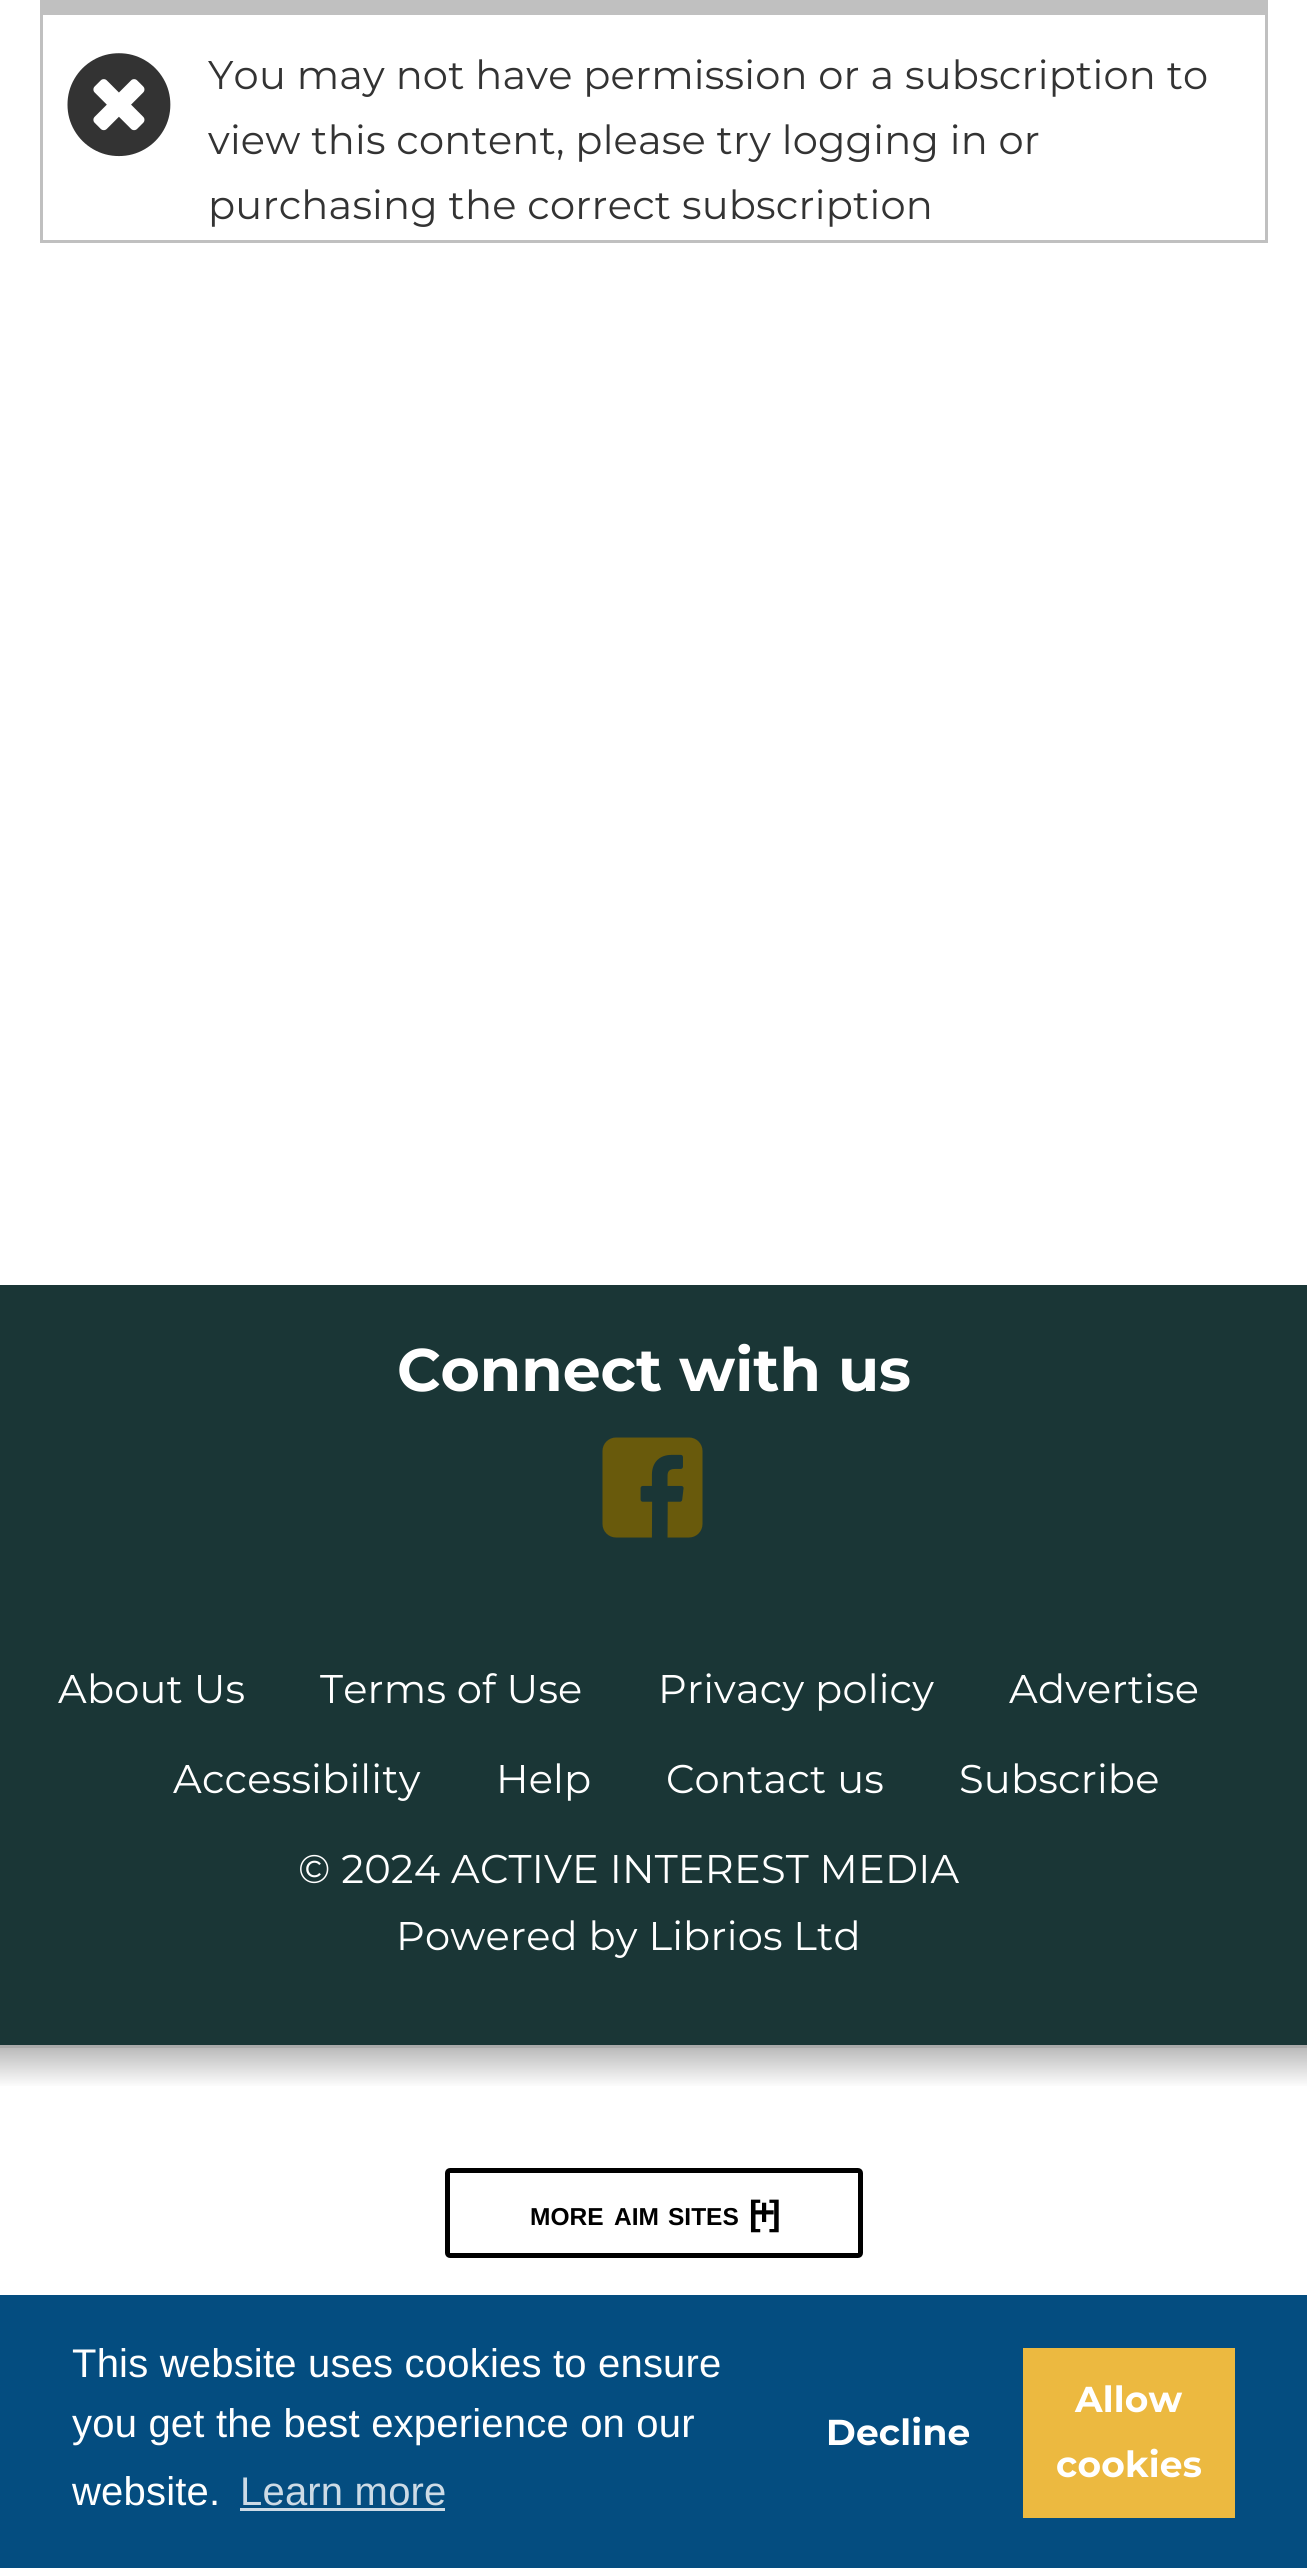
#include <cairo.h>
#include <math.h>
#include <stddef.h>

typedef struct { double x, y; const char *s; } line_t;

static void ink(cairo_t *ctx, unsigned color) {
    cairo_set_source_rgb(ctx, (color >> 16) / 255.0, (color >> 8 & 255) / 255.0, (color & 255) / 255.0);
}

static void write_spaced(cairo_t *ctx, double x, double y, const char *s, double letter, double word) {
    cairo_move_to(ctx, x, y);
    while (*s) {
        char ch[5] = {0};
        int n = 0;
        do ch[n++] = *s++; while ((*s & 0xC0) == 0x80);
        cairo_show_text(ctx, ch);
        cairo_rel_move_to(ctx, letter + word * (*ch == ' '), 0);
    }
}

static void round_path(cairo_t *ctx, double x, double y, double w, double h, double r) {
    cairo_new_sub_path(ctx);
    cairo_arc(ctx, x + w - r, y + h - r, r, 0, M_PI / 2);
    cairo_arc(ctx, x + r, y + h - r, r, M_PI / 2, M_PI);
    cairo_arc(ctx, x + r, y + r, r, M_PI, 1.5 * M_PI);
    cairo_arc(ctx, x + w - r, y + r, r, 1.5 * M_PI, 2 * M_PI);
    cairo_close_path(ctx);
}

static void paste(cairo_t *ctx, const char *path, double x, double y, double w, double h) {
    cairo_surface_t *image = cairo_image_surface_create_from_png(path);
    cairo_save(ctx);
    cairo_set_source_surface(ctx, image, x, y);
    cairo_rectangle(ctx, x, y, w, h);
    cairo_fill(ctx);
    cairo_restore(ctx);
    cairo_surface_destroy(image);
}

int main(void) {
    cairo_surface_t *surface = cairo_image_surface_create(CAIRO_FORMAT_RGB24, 1307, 2568);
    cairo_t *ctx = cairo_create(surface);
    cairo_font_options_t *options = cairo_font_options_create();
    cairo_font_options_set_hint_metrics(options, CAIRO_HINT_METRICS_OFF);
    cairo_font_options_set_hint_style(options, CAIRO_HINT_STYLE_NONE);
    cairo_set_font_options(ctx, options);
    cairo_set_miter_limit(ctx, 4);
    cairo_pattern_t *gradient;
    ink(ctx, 0xFFFFFF);
    cairo_paint(ctx);
    cairo_rectangle(ctx, 41.5, -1.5, 1225, 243);
    ink(ctx, 0xC0C0C0);
    cairo_set_line_width(ctx, 3);
    cairo_stroke(ctx);
    cairo_rectangle(ctx, 43, 0, 1222, 15);
    cairo_fill(ctx);
    paste(ctx, "media/1.png", 67, 53, 104, 104);
    cairo_select_font_face(ctx, "Montserrat", CAIRO_FONT_SLANT_NORMAL, CAIRO_FONT_WEIGHT_NORMAL);
    cairo_set_font_size(ctx, 40);
    ink(ctx, 0x333333);
    {
        static const line_t items[] = {
            {208, 89, "You may not have permission or a subscription to"},
            {208, 154, "view this content, please try logging in or"},
            {208, 219, "purchasing the correct subscription"},
        };
        for (size_t i = 0; i < sizeof items / sizeof *items; i++) {
            write_spaced(ctx, items[i].x, items[i].y, items[i].s, 0.2, 0);
        }
    }
    ink(ctx, 0x1A3636);
    cairo_rectangle(ctx, 0, 1285, 1307, 760);
    cairo_fill(ctx);
    cairo_select_font_face(ctx, "Montserrat", CAIRO_FONT_SLANT_NORMAL, CAIRO_FONT_WEIGHT_BOLD);
    cairo_set_font_size(ctx, 60);
    ink(ctx, 0xFFFFFF);
    cairo_move_to(ctx, 397, 1391);
    cairo_show_text(ctx, "Connect with us");
    paste(ctx, "media/2.png", 602, 1437, 101, 101);
    cairo_select_font_face(ctx, "Montserrat", CAIRO_FONT_SLANT_NORMAL, CAIRO_FONT_WEIGHT_NORMAL);
    cairo_set_font_size(ctx, 40);
    {
        static const line_t items[] = {
            {58, 1703, "About Us"},
            {320, 1703, "Terms of Use"},
            {658, 1703, "Privacy policy"},
            {1009, 1703, "Advertise"},
            {173, 1793, "Accessibility"},
            {496, 1793, "Help"},
            {666, 1793, "Contact us"},
            {959, 1793, "Subscribe"},
            {298, 1883, "© 2024 ACTIVE INTEREST MEDIA"},
            {396, 1950, "Powered by Librios Ltd"},
        };
        for (size_t i = 0; i < sizeof items / sizeof *items; i++) {
            write_spaced(ctx, items[i].x, items[i].y, items[i].s, 0.2, 0);
        }
    }
    gradient = cairo_pattern_create_linear(654, 2048, 654, 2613);
    cairo_pattern_add_color_stop_rgba(gradient, 0, 0.733, 0.733, 0.733, 1);
    cairo_pattern_add_color_stop_rgba(gradient, 0.07, 1, 1, 1, 1);
    cairo_pattern_add_color_stop_rgba(gradient, 1, 1, 1, 1, 1);
    cairo_set_source(ctx, gradient);
    cairo_pattern_destroy(gradient);
    cairo_rectangle(ctx, 0, 2048, 1307, 38);
    cairo_fill(ctx);
    ink(ctx, 0xAAAAAA);
    cairo_rectangle(ctx, 0, 2045, 1307, 3);
    cairo_fill(ctx);
    round_path(ctx, 447.5, 2170.5, 413, 85, 2.5);
    ink(ctx, 0x000000);
    cairo_set_line_width(ctx, 5);
    cairo_stroke(ctx);
    cairo_select_font_face(ctx, "Liberation Sans", CAIRO_FONT_SLANT_NORMAL, CAIRO_FONT_WEIGHT_BOLD);
    cairo_set_font_size(ctx, 35);
    cairo_move_to(ctx, 749, 2225);
    cairo_show_text(ctx, "[");
    cairo_set_font_size(ctx, 38);
    cairo_move_to(ctx, 753, 2225);
    cairo_show_text(ctx, "+");
    cairo_set_font_size(ctx, 35);
    cairo_move_to(ctx, 769, 2225);
    cairo_show_text(ctx, "]");
    cairo_set_font_size(ctx, 24.5);
    {
        static const line_t items[] = {
            {530, 2225, "MORE"},
            {614, 2225, "AIM"},
            {668, 2225, "SITES"},
        };
        for (size_t i = 0; i < sizeof items / sizeof *items; i++) {
            cairo_move_to(ctx, items[i].x, items[i].y);
            cairo_show_text(ctx, items[i].s);
        }
    }
    ink(ctx, 0x044D80);
    cairo_rectangle(ctx, 0, 2295, 1307, 273);
    cairo_fill(ctx);
    cairo_select_font_face(ctx, "Liberation Sans", CAIRO_FONT_SLANT_NORMAL, CAIRO_FONT_WEIGHT_NORMAL);
    cairo_set_font_size(ctx, 40);
    ink(ctx, 0xFFFFFF);
    {
        static const line_t items[] = {
            {72, 2377, "This website uses cookies to ensure"},
            {72, 2437, "you get the best experience on our"},
            {72, 2505, "website."},
        };
        for (size_t i = 0; i < sizeof items / sizeof *items; i++) {
            write_spaced(ctx, items[i].x, items[i].y, items[i].s, 0.2, 0);
        }
    }
    ink(ctx, 0xCDDBE6);
    write_spaced(ctx, 240, 2505, "Learn more", 0.2, 0);
    cairo_rectangle(ctx, 240, 2508, 205, 3);
    cairo_fill(ctx);
    cairo_select_font_face(ctx, "Montserrat", CAIRO_FONT_SLANT_NORMAL, CAIRO_FONT_WEIGHT_BOLD);
    cairo_set_font_size(ctx, 36);
    ink(ctx, 0xFFFFFF);
    write_spaced(ctx, 826, 2445, "Decline", 0.2, 0);
    ink(ctx, 0xECB940);
    cairo_rectangle(ctx, 1023, 2348, 212, 170);
    cairo_fill(ctx);
    ink(ctx, 0xFFFFFF);
    write_spaced(ctx, 1075, 2412, "Allow", 0.2, 0);
    write_spaced(ctx, 1056, 2477, "cookies", 0.2, 0);
    cairo_surface_write_to_png(surface, "image.png");
    cairo_font_options_destroy(options);
    cairo_destroy(ctx);
    cairo_surface_destroy(surface);
    return 0;
}
